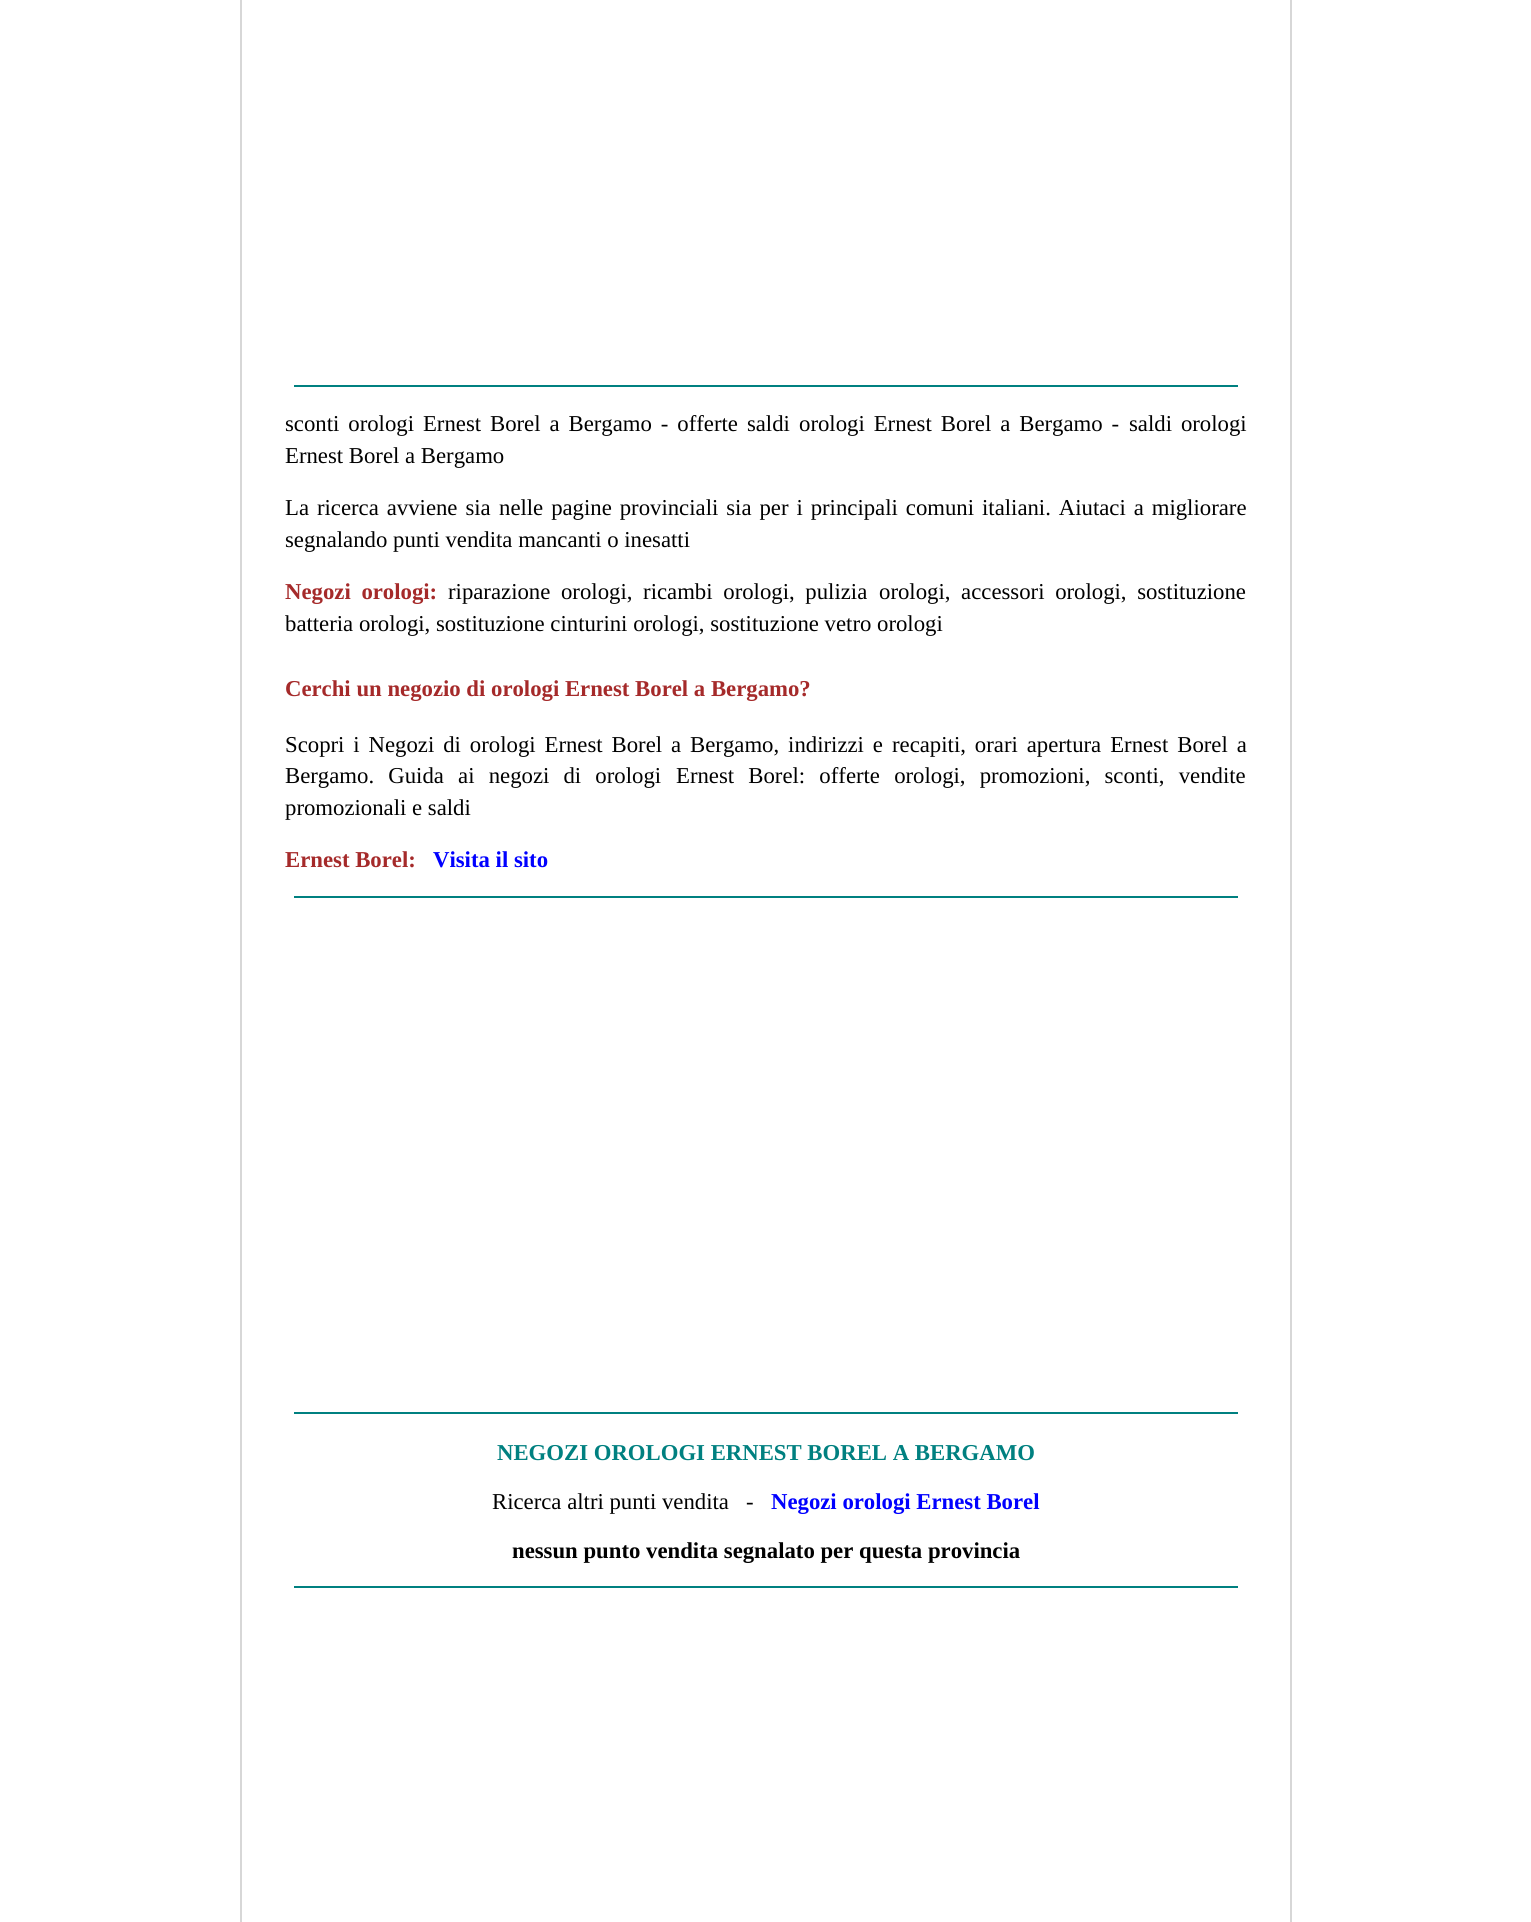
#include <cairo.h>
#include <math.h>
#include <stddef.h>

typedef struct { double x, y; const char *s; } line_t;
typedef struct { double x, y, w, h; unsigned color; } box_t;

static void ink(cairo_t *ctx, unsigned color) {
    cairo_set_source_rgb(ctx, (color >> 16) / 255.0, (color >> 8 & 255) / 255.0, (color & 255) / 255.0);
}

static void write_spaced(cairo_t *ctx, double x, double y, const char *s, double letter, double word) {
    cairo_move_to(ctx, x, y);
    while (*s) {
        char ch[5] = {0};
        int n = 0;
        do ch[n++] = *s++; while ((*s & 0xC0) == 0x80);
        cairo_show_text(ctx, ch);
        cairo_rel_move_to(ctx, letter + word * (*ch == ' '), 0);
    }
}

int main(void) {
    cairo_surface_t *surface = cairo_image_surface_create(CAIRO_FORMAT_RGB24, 1531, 1922);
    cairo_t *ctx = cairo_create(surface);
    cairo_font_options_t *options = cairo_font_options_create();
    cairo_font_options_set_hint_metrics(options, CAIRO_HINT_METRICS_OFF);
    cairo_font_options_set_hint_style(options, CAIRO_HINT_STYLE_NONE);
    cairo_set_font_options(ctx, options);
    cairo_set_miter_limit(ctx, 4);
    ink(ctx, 0xFFFFFF);
    cairo_paint(ctx);
    {
        static const box_t items[] = {
            {1290, 0, 2, 1922, 0xD7D7D7},
            {240, 0, 2, 1922, 0xD7D7D7},
            {294, 385, 944, 2, 0x008080},
        };
        for (size_t i = 0; i < sizeof items / sizeof *items; i++) {
            ink(ctx, items[i].color);
            cairo_rectangle(ctx, items[i].x, items[i].y, items[i].w, items[i].h);
            cairo_fill(ctx);
        }
    }
    cairo_select_font_face(ctx, "Liberation Serif", CAIRO_FONT_SLANT_NORMAL, CAIRO_FONT_WEIGHT_NORMAL);
    cairo_set_font_size(ctx, 22.75);
    ink(ctx, 0x000000);
    {
        static const line_t items[] = {
            {285, 431, "sconti orologi Ernest Borel a Bergamo - offerte saldi"},
            {799, 431, "orologi Ernest Borel a Bergamo -"},
            {1129, 431, "saldi orologi"},
        };
        for (size_t i = 0; i < sizeof items / sizeof *items; i++) {
            write_spaced(ctx, items[i].x, items[i].y, items[i].s, 0, 3.25);
        }
    }
    cairo_move_to(ctx, 285, 463);
    cairo_show_text(ctx, "Ernest Borel a Bergamo");
    {
        static const line_t items[] = {
            {285, 515, "La ricerca avviene sia"},
            {499, 515, "nelle pagine provinciali sia per i principali comuni"},
            {982, 515, "italiani. Aiutaci a migliorare"},
        };
        for (size_t i = 0; i < sizeof items / sizeof *items; i++) {
            write_spaced(ctx, items[i].x, items[i].y, items[i].s, 0, 2.25);
        }
    }
    cairo_move_to(ctx, 285, 547);
    cairo_show_text(ctx, "segnalando punti vendita mancanti o inesatti");
    cairo_select_font_face(ctx, "Liberation Serif", CAIRO_FONT_SLANT_NORMAL, CAIRO_FONT_WEIGHT_BOLD);
    ink(ctx, 0xA52A2A);
    write_spaced(ctx, 285, 599, "Negozi orologi:", 0, 5);
    cairo_select_font_face(ctx, "Liberation Serif", CAIRO_FONT_SLANT_NORMAL, CAIRO_FONT_WEIGHT_NORMAL);
    ink(ctx, 0x000000);
    write_spaced(ctx, 448, 599, "riparazione orologi, ricambi orologi, pulizia", 0, 5);
    write_spaced(ctx, 879, 599, "orologi, accessori orologi, sostituzione", 0, 5);
    cairo_move_to(ctx, 285, 631);
    cairo_show_text(ctx, "batteria orologi, sostituzione cinturini orologi, sostituzione vetro orologi");
    cairo_select_font_face(ctx, "Liberation Serif", CAIRO_FONT_SLANT_NORMAL, CAIRO_FONT_WEIGHT_BOLD);
    ink(ctx, 0xA52A2A);
    cairo_move_to(ctx, 285, 696);
    cairo_show_text(ctx, "Cerchi un negozio di orologi Ernest Borel a Bergamo?");
    cairo_select_font_face(ctx, "Liberation Serif", CAIRO_FONT_SLANT_NORMAL, CAIRO_FONT_WEIGHT_NORMAL);
    ink(ctx, 0x000000);
    write_spaced(ctx, 285, 752, "Scopri i Negozi di orologi Ernest Borel a Bergamo, indirizzi e", 0, 3.25);
    write_spaced(ctx, 892, 752, "recapiti, orari apertura Ernest Borel a", 0, 3.25);
    write_spaced(ctx, 285, 783, "Bergamo. Guida ai negozi di orologi", 0, 8.5);
    write_spaced(ctx, 676, 783, "Ernest Borel: offerte orologi, promozioni, sconti, vendite", 0, 8.5);
    cairo_move_to(ctx, 285, 815);
    cairo_show_text(ctx, "promozionali e saldi");
    cairo_select_font_face(ctx, "Liberation Serif", CAIRO_FONT_SLANT_NORMAL, CAIRO_FONT_WEIGHT_BOLD);
    ink(ctx, 0xA52A2A);
    cairo_move_to(ctx, 285, 867);
    cairo_show_text(ctx, "Ernest Borel:");
    ink(ctx, 0x0000FF);
    cairo_move_to(ctx, 433, 867);
    cairo_show_text(ctx, "Visita il sito");
    ink(ctx, 0x008080);
    cairo_rectangle(ctx, 294, 896, 944, 2);
    cairo_fill(ctx);
    cairo_rectangle(ctx, 294, 1412, 944, 2);
    cairo_fill(ctx);
    cairo_move_to(ctx, 497, 1460);
    cairo_show_text(ctx, "NEGOZI OROLOGI ERNEST BOREL A BERGAMO");
    cairo_select_font_face(ctx, "Liberation Serif", CAIRO_FONT_SLANT_NORMAL, CAIRO_FONT_WEIGHT_NORMAL);
    ink(ctx, 0x000000);
    cairo_move_to(ctx, 492, 1509);
    cairo_show_text(ctx, "Ricerca altri punti vendita   -");
    cairo_select_font_face(ctx, "Liberation Serif", CAIRO_FONT_SLANT_NORMAL, CAIRO_FONT_WEIGHT_BOLD);
    ink(ctx, 0x0000FF);
    cairo_move_to(ctx, 771, 1509);
    cairo_show_text(ctx, "Negozi orologi Ernest Borel");
    ink(ctx, 0x000000);
    cairo_move_to(ctx, 512, 1558);
    cairo_show_text(ctx, "nessun punto vendita segnalato per questa provincia");
    ink(ctx, 0x008080);
    cairo_rectangle(ctx, 294, 1586, 944, 2);
    cairo_fill(ctx);
    cairo_surface_write_to_png(surface, "image.png");
    cairo_font_options_destroy(options);
    cairo_destroy(ctx);
    cairo_surface_destroy(surface);
    return 0;
}
